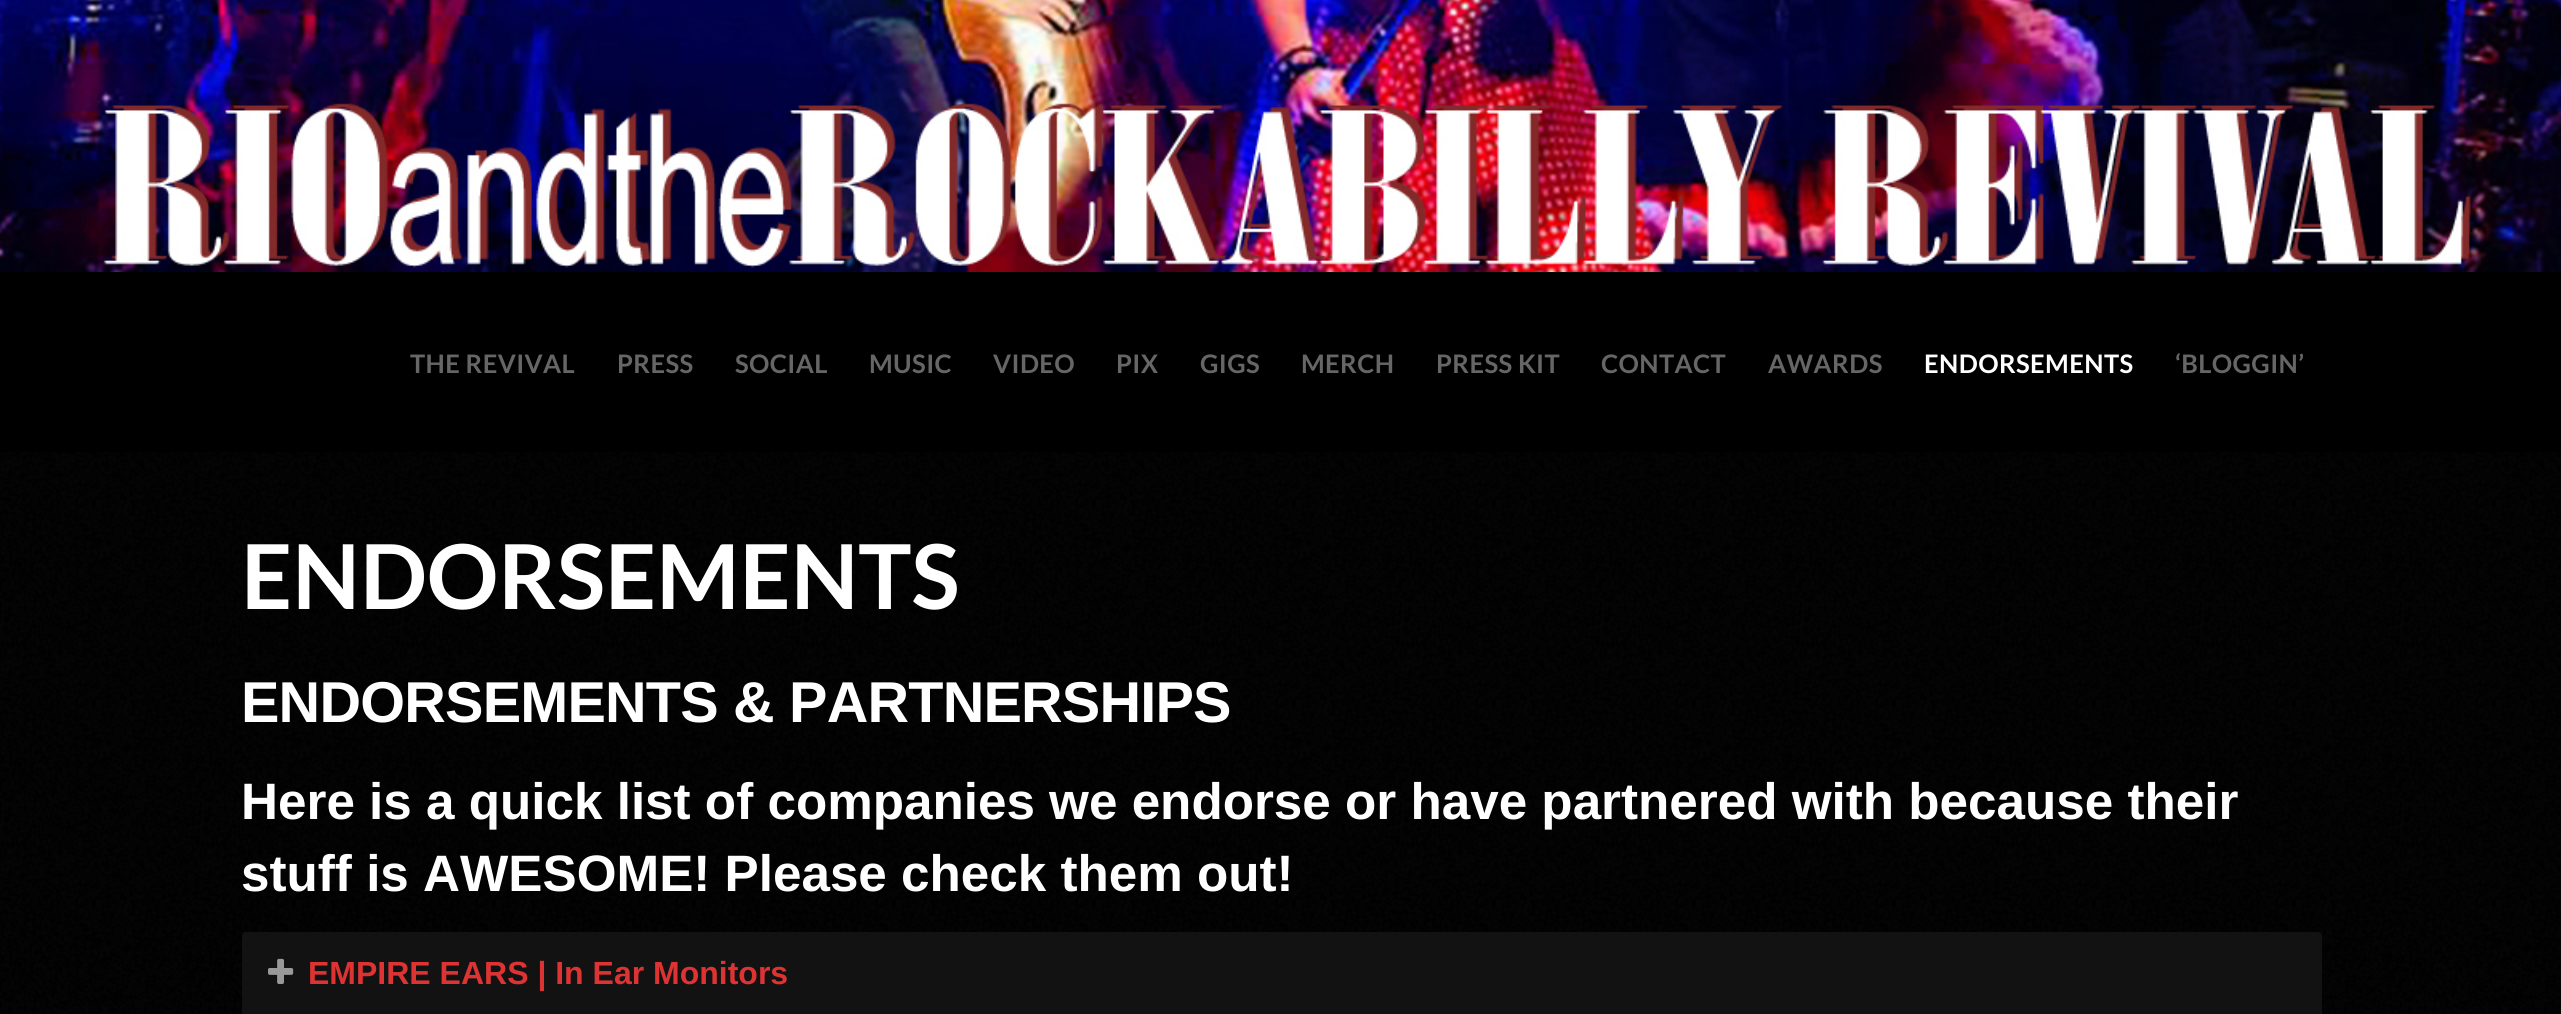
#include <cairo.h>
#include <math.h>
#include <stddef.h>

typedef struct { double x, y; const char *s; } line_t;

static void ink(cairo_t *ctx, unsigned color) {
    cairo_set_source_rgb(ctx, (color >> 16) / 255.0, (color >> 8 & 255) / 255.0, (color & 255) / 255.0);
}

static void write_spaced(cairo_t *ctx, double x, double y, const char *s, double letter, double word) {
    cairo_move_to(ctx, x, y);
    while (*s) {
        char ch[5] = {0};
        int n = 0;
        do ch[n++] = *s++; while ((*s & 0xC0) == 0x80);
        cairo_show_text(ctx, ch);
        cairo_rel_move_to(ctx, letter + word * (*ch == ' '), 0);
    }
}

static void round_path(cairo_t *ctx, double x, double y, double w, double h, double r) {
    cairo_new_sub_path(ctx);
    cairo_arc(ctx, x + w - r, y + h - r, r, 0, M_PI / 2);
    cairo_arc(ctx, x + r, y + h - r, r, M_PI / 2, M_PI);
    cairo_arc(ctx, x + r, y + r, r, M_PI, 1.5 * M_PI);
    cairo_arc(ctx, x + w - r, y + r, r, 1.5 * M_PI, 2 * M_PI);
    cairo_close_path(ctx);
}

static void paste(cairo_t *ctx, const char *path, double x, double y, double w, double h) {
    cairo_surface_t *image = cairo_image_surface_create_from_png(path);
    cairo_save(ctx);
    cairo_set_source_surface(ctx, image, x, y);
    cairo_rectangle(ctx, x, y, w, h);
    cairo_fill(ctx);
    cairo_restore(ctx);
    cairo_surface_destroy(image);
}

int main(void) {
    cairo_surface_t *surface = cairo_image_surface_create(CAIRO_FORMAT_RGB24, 2561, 1014);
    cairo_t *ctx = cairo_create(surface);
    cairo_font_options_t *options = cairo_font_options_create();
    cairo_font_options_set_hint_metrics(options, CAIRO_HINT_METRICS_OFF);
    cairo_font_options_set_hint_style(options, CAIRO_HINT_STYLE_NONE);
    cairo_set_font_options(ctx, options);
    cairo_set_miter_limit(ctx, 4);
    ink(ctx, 0x000000);
    cairo_paint(ctx);
    paste(ctx, "media/1.png", 0, 452, 2561, 562);
    paste(ctx, "media/2.png", 0, 0, 2561, 272);
    cairo_select_font_face(ctx, "Lato", CAIRO_FONT_SLANT_NORMAL, CAIRO_FONT_WEIGHT_BOLD);
    cairo_set_font_size(ctx, 25.5);
    ink(ctx, 0x666666);
    {
        static const line_t items[] = {
            {410, 373, "THE REVIVAL"},
            {617, 373, "PRESS"},
            {735, 373, "SOCIAL"},
            {869, 373, "MUSIC"},
            {993, 373, "VIDEO"},
            {1116, 373, "PIX"},
            {1200, 373, "GIGS"},
            {1301, 373, "MERCH"},
            {1436, 373, "PRESS KIT"},
            {1601, 373, "CONTACT"},
            {1768, 373, "AWARDS"},
        };
        for (size_t i = 0; i < sizeof items / sizeof *items; i++) {
            write_spaced(ctx, items[i].x, items[i].y, items[i].s, 0.4, 0);
        }
    }
    ink(ctx, 0xFFFFFF);
    write_spaced(ctx, 1924, 373, "ENDORSEMENTS", 0.4, 0);
    ink(ctx, 0x666666);
    write_spaced(ctx, 2175, 373, "‘BLOGGIN’", 0.4, 0);
    cairo_set_font_size(ctx, 89.5);
    ink(ctx, 0xFFFFFF);
    cairo_move_to(ctx, 241, 609);
    cairo_show_text(ctx, "ENDORSEMENTS");
    cairo_select_font_face(ctx, "Liberation Sans", CAIRO_FONT_SLANT_NORMAL, CAIRO_FONT_WEIGHT_BOLD);
    cairo_set_font_size(ctx, 57.6);
    write_spaced(ctx, 241, 722, "ENDORSEMENTS & PARTNERSHIPS", -0.8, 0);
    cairo_set_font_size(ctx, 51.2);
    cairo_move_to(ctx, 241, 819);
    cairo_show_text(ctx, "Here is a quick list of companies we endorse or have partnered with because their");
    cairo_move_to(ctx, 241, 891);
    cairo_show_text(ctx, "stuff is AWESOME! Please check them out!");
    ink(ctx, 0x121212);
    round_path(ctx, 242, 932, 2080, 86, 4);
    cairo_fill(ctx);
    paste(ctx, "media/3.png", 268, 958, 26, 26);
    cairo_set_font_size(ctx, 32);
    ink(ctx, 0xDD3333);
    cairo_move_to(ctx, 308, 984);
    cairo_show_text(ctx, "EMPIRE EARS | In Ear Monitors");
    cairo_surface_write_to_png(surface, "image.png");
    cairo_font_options_destroy(options);
    cairo_destroy(ctx);
    cairo_surface_destroy(surface);
    return 0;
}
